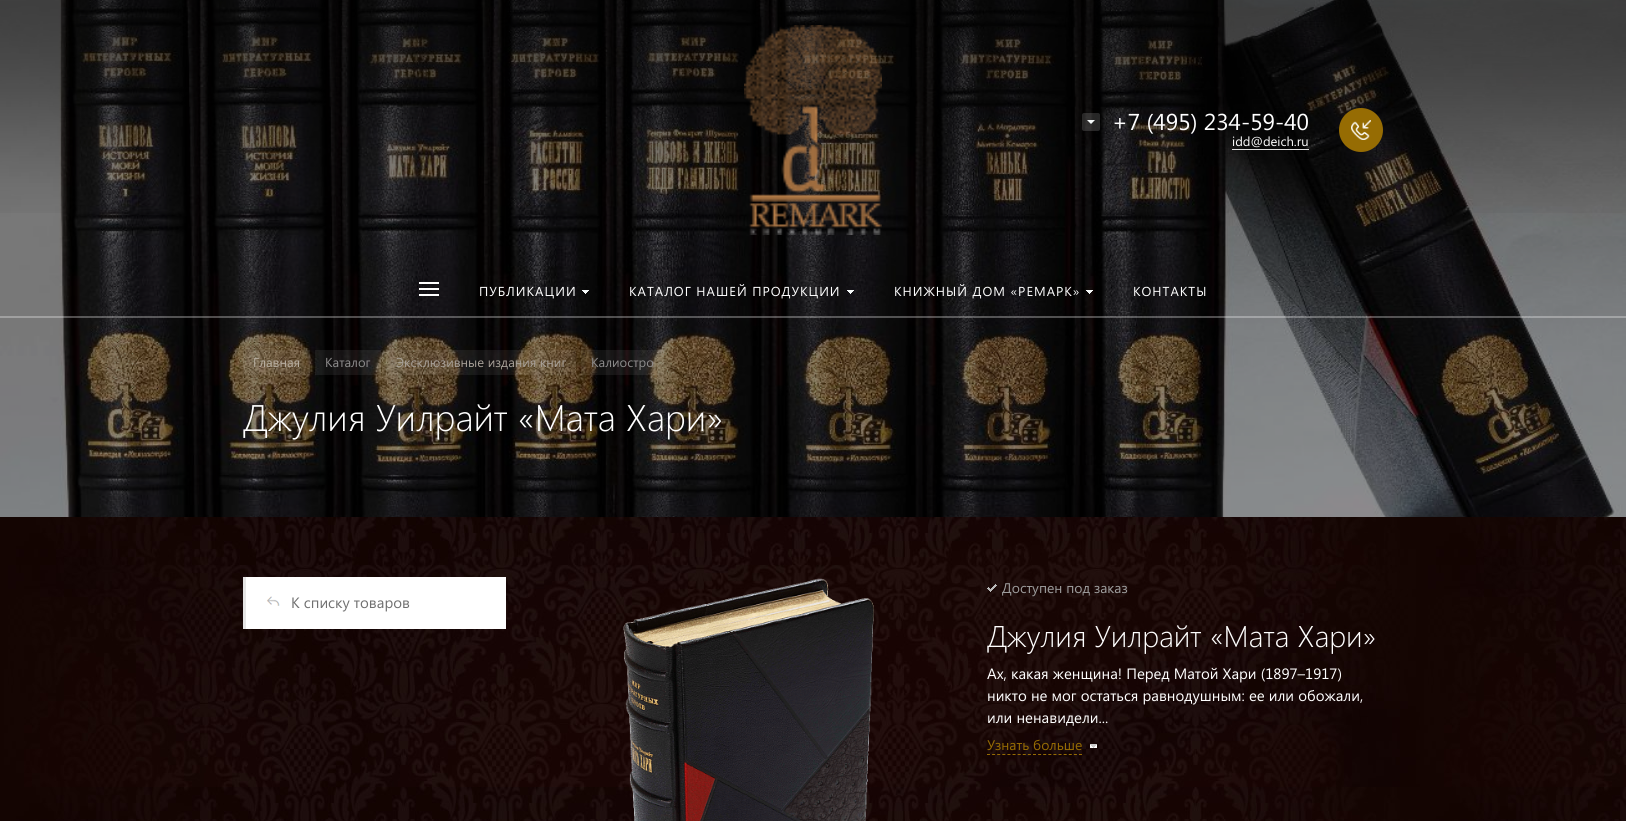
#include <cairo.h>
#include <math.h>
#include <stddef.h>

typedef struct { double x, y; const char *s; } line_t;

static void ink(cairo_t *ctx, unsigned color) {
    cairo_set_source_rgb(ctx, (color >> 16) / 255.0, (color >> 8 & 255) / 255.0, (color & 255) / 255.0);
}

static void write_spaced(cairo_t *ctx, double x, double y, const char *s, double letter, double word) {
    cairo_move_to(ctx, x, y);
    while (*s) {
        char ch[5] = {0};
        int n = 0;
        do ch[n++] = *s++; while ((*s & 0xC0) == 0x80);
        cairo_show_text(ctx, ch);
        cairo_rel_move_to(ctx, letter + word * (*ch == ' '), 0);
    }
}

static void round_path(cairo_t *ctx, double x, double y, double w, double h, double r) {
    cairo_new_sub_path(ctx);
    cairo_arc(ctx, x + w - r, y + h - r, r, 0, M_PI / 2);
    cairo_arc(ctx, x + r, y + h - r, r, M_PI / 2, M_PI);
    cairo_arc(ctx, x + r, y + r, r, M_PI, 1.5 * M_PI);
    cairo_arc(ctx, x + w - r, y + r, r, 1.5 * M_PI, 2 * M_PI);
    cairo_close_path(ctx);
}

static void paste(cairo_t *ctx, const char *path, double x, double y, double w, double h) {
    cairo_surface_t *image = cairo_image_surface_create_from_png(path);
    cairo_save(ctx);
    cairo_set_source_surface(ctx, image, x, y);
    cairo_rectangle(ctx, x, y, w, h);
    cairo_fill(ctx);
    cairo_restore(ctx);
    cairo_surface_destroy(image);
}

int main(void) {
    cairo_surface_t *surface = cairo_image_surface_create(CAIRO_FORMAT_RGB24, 1626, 821);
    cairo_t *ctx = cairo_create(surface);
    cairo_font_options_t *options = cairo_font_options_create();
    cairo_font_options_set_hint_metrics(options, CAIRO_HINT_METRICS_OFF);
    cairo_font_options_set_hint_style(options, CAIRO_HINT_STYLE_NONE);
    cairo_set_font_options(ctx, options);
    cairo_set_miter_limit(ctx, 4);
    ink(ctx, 0xFFFFFF);
    cairo_paint(ctx);
    paste(ctx, "media/7.png", 0, 0, 1626, 517);
    paste(ctx, "media/8.png", 0, 0, 1626, 213);
    paste(ctx, "media/1.png", 744, 25, 138, 210);
    cairo_set_source_rgba(ctx, 1, 1, 1, 0.15);
    round_path(ctx, 1082, 113, 18, 18, 2);
    cairo_fill(ctx);
    paste(ctx, "media/2.png", 1087, 120, 8, 4);
    cairo_select_font_face(ctx, "Segoe UI", CAIRO_FONT_SLANT_NORMAL, CAIRO_FONT_WEIGHT_NORMAL);
    cairo_set_font_size(ctx, 23);
    ink(ctx, 0xFFFFFF);
    cairo_move_to(ctx, 1112, 130);
    cairo_show_text(ctx, "+7 (495) 234-59-40");
    cairo_set_font_size(ctx, 13);
    cairo_move_to(ctx, 1232, 146);
    cairo_show_text(ctx, "idd@deich.ru");
    ink(ctx, 0xDEDEDE);
    cairo_rectangle(ctx, 1232, 149, 77, 1);
    cairo_fill(ctx);
    ink(ctx, 0x966C03);
    cairo_arc(ctx, 1361, 130, 22, 0, 2 * M_PI);
    cairo_fill(ctx);
    paste(ctx, "media/3.png", 1351, 120, 20, 20);
    cairo_set_source_rgba(ctx, 1, 1, 1, 0.3);
    cairo_rectangle(ctx, 0, 316, 1626, 2);
    cairo_fill(ctx);
    ink(ctx, 0xFFFFFF);
    cairo_rectangle(ctx, 419, 282, 20, 2);
    cairo_fill(ctx);
    cairo_rectangle(ctx, 419, 288, 20, 2);
    cairo_fill(ctx);
    cairo_rectangle(ctx, 419, 294, 20, 2);
    cairo_fill(ctx);
    write_spaced(ctx, 479, 296, "ПУБЛИКАЦИИ", 1, 0);
    paste(ctx, "media/4.png", 582, 290, 7, 4);
    write_spaced(ctx, 629, 296, "КАТАЛОГ НАШЕЙ ПРОДУКЦИИ", 1, 0);
    paste(ctx, "media/5.png", 847, 290, 7, 4);
    write_spaced(ctx, 894, 296, "КНИЖНЫЙ ДОМ «РЕМАРК»", 1, 0);
    paste(ctx, "media/6.png", 1086, 290, 7, 4);
    write_spaced(ctx, 1133, 296, "КОНТАКТЫ", 1, 0);
    cairo_set_source_rgba(ctx, 1, 1, 1, 0.07);
    cairo_rectangle(ctx, 243, 350, 67, 25);
    cairo_fill(ctx);
    ink(ctx, 0xB7AEA1);
    cairo_move_to(ctx, 253, 367);
    cairo_show_text(ctx, "Главная");
    cairo_set_source_rgba(ctx, 1, 1, 1, 0.07);
    cairo_rectangle(ctx, 315, 350, 66, 25);
    cairo_fill(ctx);
    ink(ctx, 0x8D8C8C);
    cairo_move_to(ctx, 325, 367);
    cairo_show_text(ctx, "Каталог");
    cairo_set_source_rgba(ctx, 1, 1, 1, 0.07);
    cairo_rectangle(ctx, 386, 350, 190, 25);
    cairo_fill(ctx);
    ink(ctx, 0xA7A098);
    cairo_move_to(ctx, 396, 367);
    cairo_show_text(ctx, "Эксклюзивные издания книг");
    cairo_set_source_rgba(ctx, 1, 1, 1, 0.07);
    cairo_rectangle(ctx, 581, 350, 83, 25);
    cairo_fill(ctx);
    ink(ctx, 0x8D8C8C);
    cairo_move_to(ctx, 591, 367);
    cairo_show_text(ctx, "Калиостро");
    cairo_select_font_face(ctx, "Segoe UI Light", CAIRO_FONT_SLANT_NORMAL, CAIRO_FONT_WEIGHT_NORMAL);
    cairo_set_font_size(ctx, 37);
    ink(ctx, 0xFFFFFF);
    cairo_move_to(ctx, 243, 431);
    cairo_show_text(ctx, "Джулия Уилрайт «Мата Хари»");
    paste(ctx, "media/9.png", 0, 517, 1626, 304);
    cairo_rectangle(ctx, 246, 577, 260, 52);
    cairo_fill(ctx);
    ink(ctx, 0xE5E5E5);
    cairo_rectangle(ctx, 243, 577, 3, 52);
    cairo_fill(ctx);
    paste(ctx, "media/10.png", 266, 596, 14, 10);
    cairo_select_font_face(ctx, "Segoe UI", CAIRO_FONT_SLANT_NORMAL, CAIRO_FONT_WEIGHT_NORMAL);
    cairo_set_font_size(ctx, 15);
    ink(ctx, 0x707070);
    cairo_move_to(ctx, 291, 608);
    cairo_show_text(ctx, "К списку товаров");
    paste(ctx, "media/11.png", 623, 578, 251, 243);
    paste(ctx, "media/12.png", 987, 584, 10, 8);
    cairo_set_font_size(ctx, 14);
    ink(ctx, 0x9D9D9D);
    cairo_move_to(ctx, 1002, 593);
    cairo_show_text(ctx, "Доступен под заказ");
    cairo_select_font_face(ctx, "Segoe UI Light", CAIRO_FONT_SLANT_NORMAL, CAIRO_FONT_WEIGHT_NORMAL);
    cairo_set_font_size(ctx, 30);
    ink(ctx, 0xFFFFFF);
    cairo_move_to(ctx, 987, 647);
    cairo_show_text(ctx, "Джулия Уилрайт «Мата Хари»");
    cairo_select_font_face(ctx, "Segoe UI", CAIRO_FONT_SLANT_NORMAL, CAIRO_FONT_WEIGHT_NORMAL);
    cairo_set_font_size(ctx, 15);
    {
        static const line_t items[] = {
            {987, 679, "Ах, какая женщина! Перед Матой Хари (1897–1917)"},
            {987, 701, "никто не мог остаться равнодушным: ее или обожали,"},
            {987, 723, "или ненавидели..."},
        };
        for (size_t i = 0; i < sizeof items / sizeof *items; i++) {
            cairo_move_to(ctx, items[i].x, items[i].y);
            cairo_show_text(ctx, items[i].s);
        }
    }
    paste(ctx, "media/13.png", 1090, 744, 7, 4);
    cairo_set_font_size(ctx, 14);
    ink(ctx, 0x966C03);
    cairo_move_to(ctx, 987, 750);
    cairo_show_text(ctx, "Узнать больше");
    cairo_new_path(ctx);
    cairo_move_to(ctx, 987, 754.5);
    cairo_line_to(ctx, 1082, 754.5);
    cairo_set_line_width(ctx, 1);
    cairo_set_dash(ctx, (double[]){3, 2.11}, 2, 0);
    cairo_stroke(ctx);
    cairo_surface_write_to_png(surface, "image.png");
    cairo_font_options_destroy(options);
    cairo_destroy(ctx);
    cairo_surface_destroy(surface);
    return 0;
}
